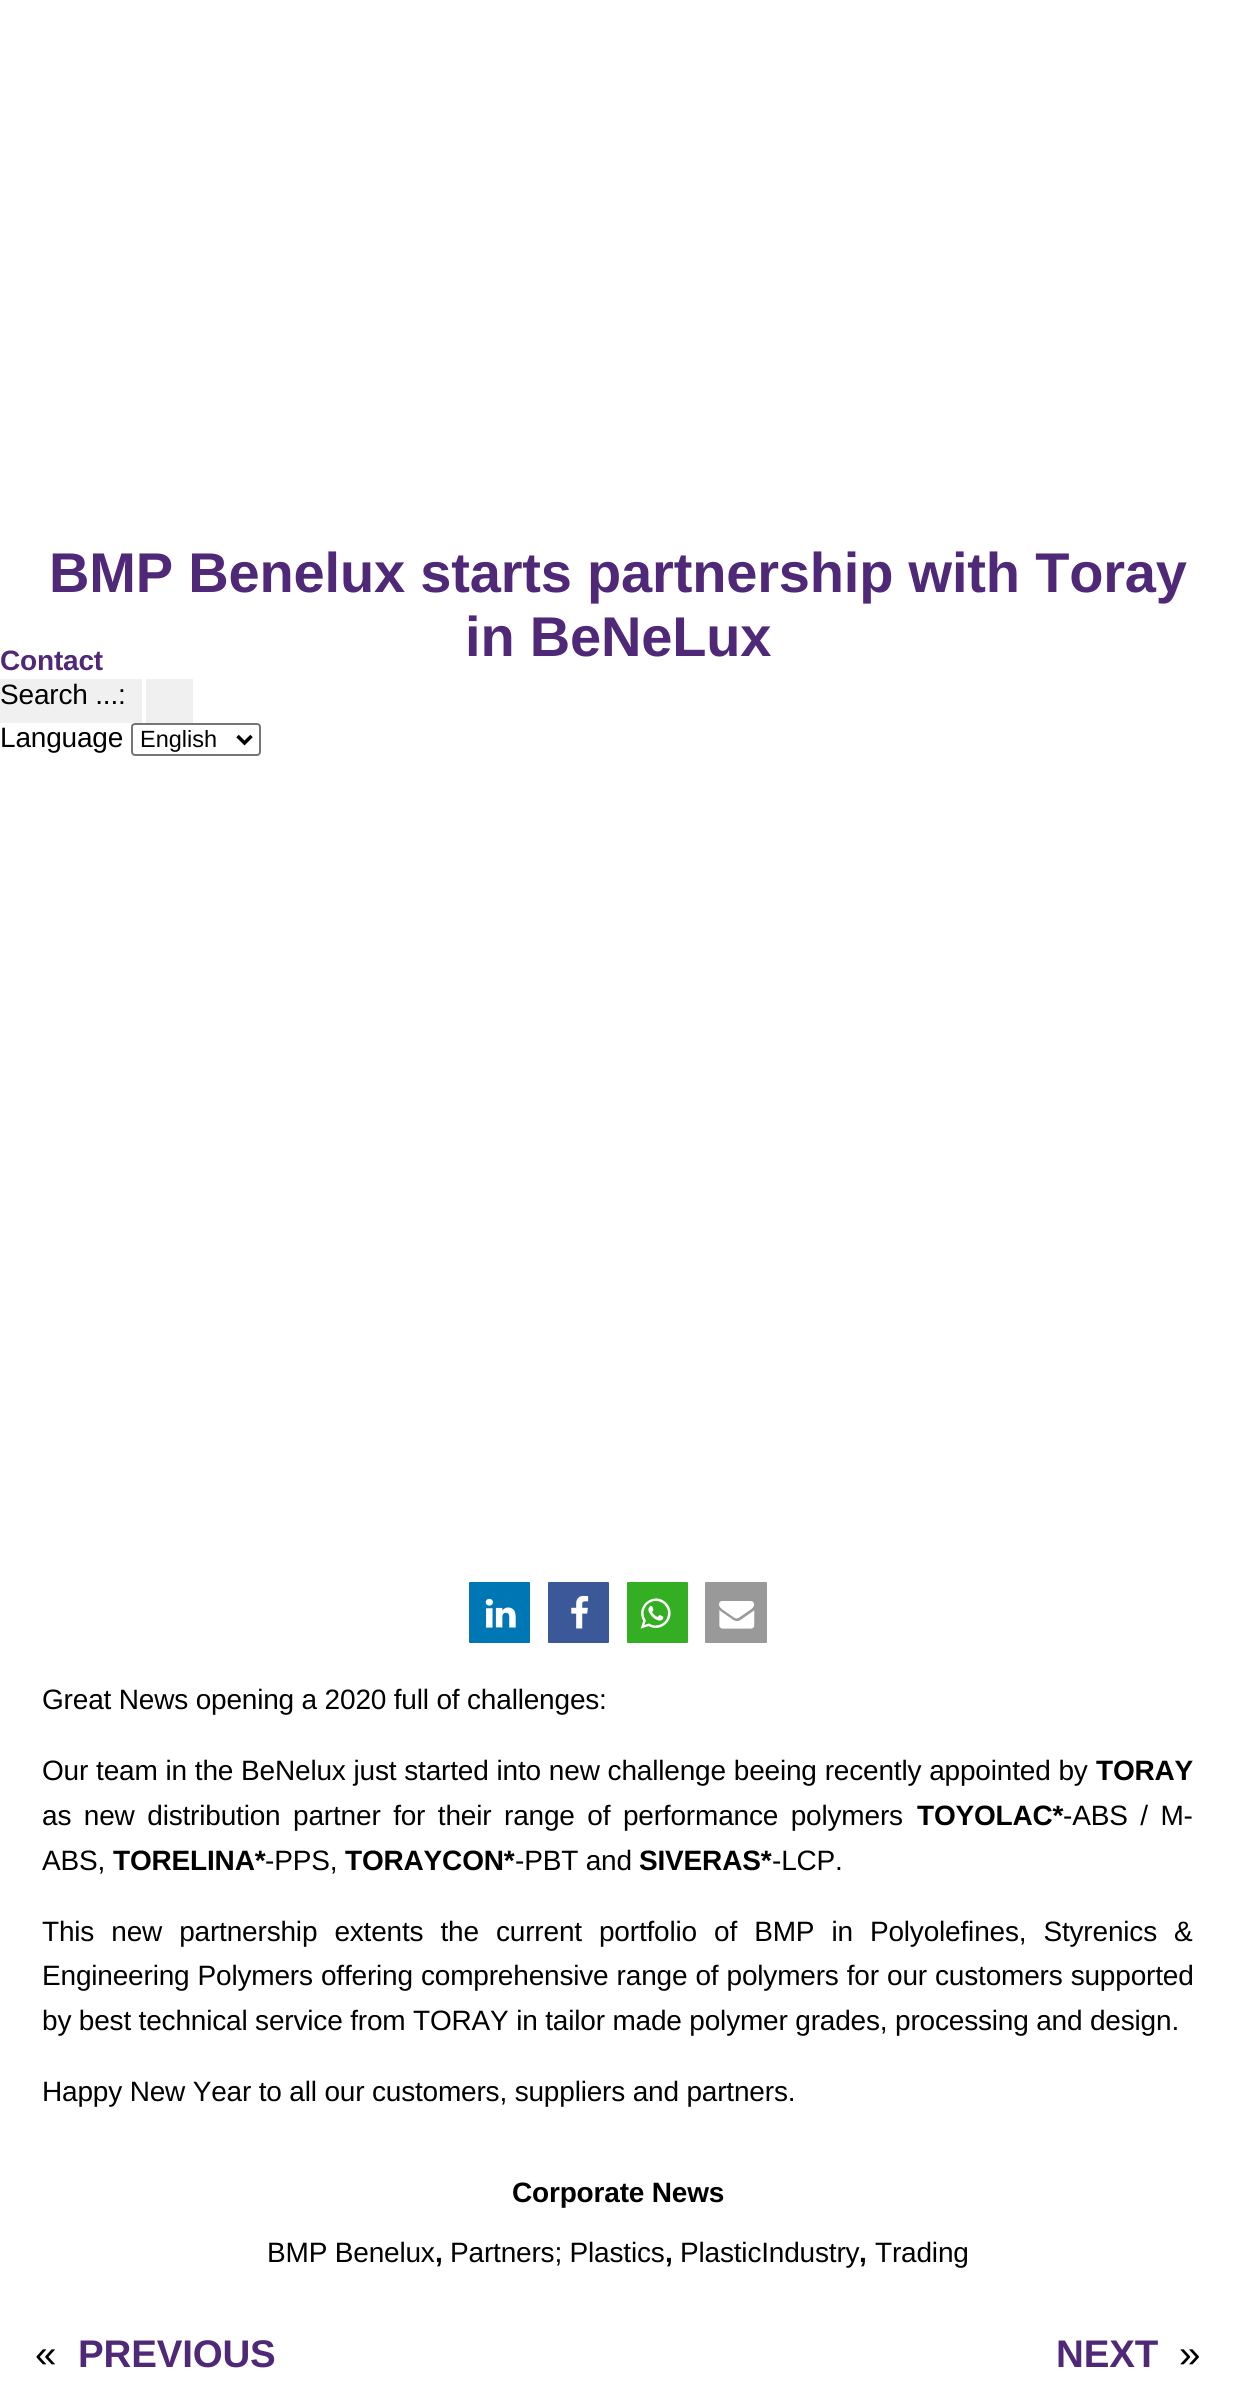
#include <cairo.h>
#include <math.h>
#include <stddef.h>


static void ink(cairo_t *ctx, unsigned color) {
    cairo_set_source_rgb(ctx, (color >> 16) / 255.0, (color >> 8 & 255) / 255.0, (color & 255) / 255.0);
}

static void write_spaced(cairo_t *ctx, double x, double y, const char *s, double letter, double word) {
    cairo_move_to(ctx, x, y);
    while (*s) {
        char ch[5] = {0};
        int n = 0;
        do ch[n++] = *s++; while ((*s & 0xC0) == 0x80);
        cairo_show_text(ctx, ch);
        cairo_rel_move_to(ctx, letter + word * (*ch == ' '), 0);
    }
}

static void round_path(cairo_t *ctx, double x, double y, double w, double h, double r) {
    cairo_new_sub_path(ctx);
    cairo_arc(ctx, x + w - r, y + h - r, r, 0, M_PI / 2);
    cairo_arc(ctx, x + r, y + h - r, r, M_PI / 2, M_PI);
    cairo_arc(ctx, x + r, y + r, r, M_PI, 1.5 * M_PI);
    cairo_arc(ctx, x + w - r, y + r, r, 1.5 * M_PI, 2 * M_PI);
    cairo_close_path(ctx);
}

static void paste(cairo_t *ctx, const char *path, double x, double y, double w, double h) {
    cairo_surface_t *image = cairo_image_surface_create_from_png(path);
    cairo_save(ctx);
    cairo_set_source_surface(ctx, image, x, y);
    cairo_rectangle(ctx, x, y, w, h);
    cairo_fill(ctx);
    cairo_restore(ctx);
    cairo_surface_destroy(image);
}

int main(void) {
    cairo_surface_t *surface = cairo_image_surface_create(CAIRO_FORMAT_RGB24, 1235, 2403);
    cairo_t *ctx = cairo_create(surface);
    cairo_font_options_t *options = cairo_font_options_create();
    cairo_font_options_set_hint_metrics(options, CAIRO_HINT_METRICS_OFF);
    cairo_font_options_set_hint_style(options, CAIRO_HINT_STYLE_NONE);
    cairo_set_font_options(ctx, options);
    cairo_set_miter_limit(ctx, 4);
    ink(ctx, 0xFFFFFF);
    cairo_paint(ctx);
    cairo_select_font_face(ctx, "Liberation Sans", CAIRO_FONT_SLANT_NORMAL, CAIRO_FONT_WEIGHT_BOLD);
    cairo_set_font_size(ctx, 56);
    ink(ctx, 0x502878);
    write_spaced(ctx, 49, 592, "BMP Benelux starts partnership with Toray", -0.18, 0);
    write_spaced(ctx, 465, 656, "in BeNeLux", -0.18, 0);
    ink(ctx, 0x0077B5);
    round_path(ctx, 469, 1582, 61, 61, 1);
    cairo_fill(ctx);
    paste(ctx, "media/1.png", 485, 1598, 31, 30);
    ink(ctx, 0x3B5998);
    round_path(ctx, 548, 1582, 61, 61, 1);
    cairo_fill(ctx);
    paste(ctx, "media/2.png", 571, 1595, 18, 34);
    ink(ctx, 0x34AF23);
    round_path(ctx, 627, 1582, 61, 61, 1);
    cairo_fill(ctx);
    paste(ctx, "media/3.png", 640, 1598, 31, 31);
    ink(ctx, 0x999999);
    round_path(ctx, 705, 1582, 62, 61, 1);
    cairo_fill(ctx);
    paste(ctx, "media/4.png", 719, 1601, 36, 28);
    cairo_select_font_face(ctx, "Liberation Sans", CAIRO_FONT_SLANT_NORMAL, CAIRO_FONT_WEIGHT_NORMAL);
    cairo_set_font_size(ctx, 28);
    ink(ctx, 0x000000);
    write_spaced(ctx, 42, 1709, "Great News opening a 2020 full of challenges:", -0.18, 0);
    write_spaced(ctx, 42, 1780, "Our team in the BeNelux just started into new challenge beeing recently appointed by", -0.18, 0.3);
    cairo_select_font_face(ctx, "Liberation Sans", CAIRO_FONT_SLANT_NORMAL, CAIRO_FONT_WEIGHT_BOLD);
    write_spaced(ctx, 1096, 1780, "TORAY", -0.18, 0);
    cairo_select_font_face(ctx, "Liberation Sans", CAIRO_FONT_SLANT_NORMAL, CAIRO_FONT_WEIGHT_NORMAL);
    write_spaced(ctx, 42, 1825, "as new distribution partner for their range of performance polymers", -0.18, 5);
    cairo_select_font_face(ctx, "Liberation Sans", CAIRO_FONT_SLANT_NORMAL, CAIRO_FONT_WEIGHT_BOLD);
    write_spaced(ctx, 917, 1825, "TOYOLAC*", -0.18, 0);
    cairo_select_font_face(ctx, "Liberation Sans", CAIRO_FONT_SLANT_NORMAL, CAIRO_FONT_WEIGHT_NORMAL);
    write_spaced(ctx, 1063, 1825, "-ABS / M-", -0.18, 5);
    write_spaced(ctx, 42, 1870, "ABS,", -0.18, 0);
    cairo_select_font_face(ctx, "Liberation Sans", CAIRO_FONT_SLANT_NORMAL, CAIRO_FONT_WEIGHT_BOLD);
    write_spaced(ctx, 113, 1870, "TORELINA*", -0.18, 0);
    cairo_select_font_face(ctx, "Liberation Sans", CAIRO_FONT_SLANT_NORMAL, CAIRO_FONT_WEIGHT_NORMAL);
    write_spaced(ctx, 265, 1870, "-PPS,", -0.18, 0);
    cairo_select_font_face(ctx, "Liberation Sans", CAIRO_FONT_SLANT_NORMAL, CAIRO_FONT_WEIGHT_BOLD);
    write_spaced(ctx, 345, 1870, "TORAYCON*", -0.18, 0);
    cairo_select_font_face(ctx, "Liberation Sans", CAIRO_FONT_SLANT_NORMAL, CAIRO_FONT_WEIGHT_NORMAL);
    write_spaced(ctx, 515, 1870, "-PBT and", -0.18, 0);
    cairo_select_font_face(ctx, "Liberation Sans", CAIRO_FONT_SLANT_NORMAL, CAIRO_FONT_WEIGHT_BOLD);
    write_spaced(ctx, 639, 1870, "SIVERAS*", -0.18, 0);
    cairo_select_font_face(ctx, "Liberation Sans", CAIRO_FONT_SLANT_NORMAL, CAIRO_FONT_WEIGHT_NORMAL);
    write_spaced(ctx, 772, 1870, "-LCP.", -0.18, 0);
    write_spaced(ctx, 42, 1941, "This new partnership extents the current portfolio of BMP in Polyolefines, Styrenics &", -0.18, 9.5);
    write_spaced(ctx, 42, 1985, "Engineering Polymers offering comprehensive range of polymers for our customers supported", -0.18, 0.5);
    write_spaced(ctx, 42, 2030, "by best technical service from TORAY in tailor made polymer grades, processing and design.", -0.18, 0);
    write_spaced(ctx, 42, 2101, "Happy New Year to all our customers, suppliers and partners.", -0.18, 0);
    cairo_select_font_face(ctx, "Liberation Sans", CAIRO_FONT_SLANT_NORMAL, CAIRO_FONT_WEIGHT_BOLD);
    write_spaced(ctx, 512, 2202, "Corporate News", -0.18, 0);
    cairo_select_font_face(ctx, "Liberation Sans", CAIRO_FONT_SLANT_NORMAL, CAIRO_FONT_WEIGHT_NORMAL);
    write_spaced(ctx, 267, 2262, "BMP Benelux", -0.18, 0);
    cairo_select_font_face(ctx, "Liberation Sans", CAIRO_FONT_SLANT_NORMAL, CAIRO_FONT_WEIGHT_BOLD);
    write_spaced(ctx, 435, 2262, ",", -0.18, 0);
    cairo_select_font_face(ctx, "Liberation Sans", CAIRO_FONT_SLANT_NORMAL, CAIRO_FONT_WEIGHT_NORMAL);
    write_spaced(ctx, 450, 2262, "Partners; Plastics", -0.18, 0);
    cairo_select_font_face(ctx, "Liberation Sans", CAIRO_FONT_SLANT_NORMAL, CAIRO_FONT_WEIGHT_BOLD);
    write_spaced(ctx, 665, 2262, ",", -0.18, 0);
    cairo_select_font_face(ctx, "Liberation Sans", CAIRO_FONT_SLANT_NORMAL, CAIRO_FONT_WEIGHT_NORMAL);
    write_spaced(ctx, 680, 2262, "PlasticIndustry", -0.18, 0);
    cairo_select_font_face(ctx, "Liberation Sans", CAIRO_FONT_SLANT_NORMAL, CAIRO_FONT_WEIGHT_BOLD);
    write_spaced(ctx, 859, 2262, ",", -0.18, 0);
    cairo_select_font_face(ctx, "Liberation Sans", CAIRO_FONT_SLANT_NORMAL, CAIRO_FONT_WEIGHT_NORMAL);
    write_spaced(ctx, 875, 2262, "Trading", -0.18, 0);
    cairo_set_font_size(ctx, 38.5);
    write_spaced(ctx, 35, 2367, "«", -0.18, 0);
    cairo_select_font_face(ctx, "Liberation Sans", CAIRO_FONT_SLANT_NORMAL, CAIRO_FONT_WEIGHT_BOLD);
    ink(ctx, 0x502878);
    write_spaced(ctx, 78, 2367, "PREVIOUS", -0.18, 0);
    write_spaced(ctx, 1056, 2367, "NEXT", -0.18, 0);
    cairo_select_font_face(ctx, "Liberation Sans", CAIRO_FONT_SLANT_NORMAL, CAIRO_FONT_WEIGHT_NORMAL);
    ink(ctx, 0x000000);
    write_spaced(ctx, 1179, 2367, "»", -0.18, 0);
    cairo_select_font_face(ctx, "Liberation Sans", CAIRO_FONT_SLANT_NORMAL, CAIRO_FONT_WEIGHT_BOLD);
    cairo_set_font_size(ctx, 28);
    ink(ctx, 0x502878);
    write_spaced(ctx, 0, 670, "Contact", -0.18, 0);
    ink(ctx, 0xF0F0F0);
    cairo_rectangle(ctx, 0, 679, 193, 44);
    cairo_fill(ctx);
    cairo_select_font_face(ctx, "Liberation Sans", CAIRO_FONT_SLANT_NORMAL, CAIRO_FONT_WEIGHT_NORMAL);
    ink(ctx, 0x000000);
    write_spaced(ctx, 0, 704, "Search ...:", -0.18, 0);
    ink(ctx, 0xFFFFFF);
    cairo_rectangle(ctx, 142, 679, 4, 44);
    cairo_fill(ctx);
    ink(ctx, 0x000000);
    write_spaced(ctx, 0, 747, "Language", -0.18, 0);
    round_path(ctx, 132, 724, 128, 31, 3);
    ink(ctx, 0x767676);
    cairo_stroke(ctx);
    cairo_new_path(ctx);
    cairo_move_to(ctx, 237.5, 736);
    cairo_line_to(ctx, 244.5, 743);
    cairo_line_to(ctx, 251.5, 736);
    ink(ctx, 0x000000);
    cairo_set_line_width(ctx, 3.5);
    cairo_stroke(ctx);
    cairo_set_font_size(ctx, 23.5);
    cairo_move_to(ctx, 140, 747);
    cairo_show_text(ctx, "English");
    cairo_surface_write_to_png(surface, "image.png");
    cairo_font_options_destroy(options);
    cairo_destroy(ctx);
    cairo_surface_destroy(surface);
    return 0;
}
